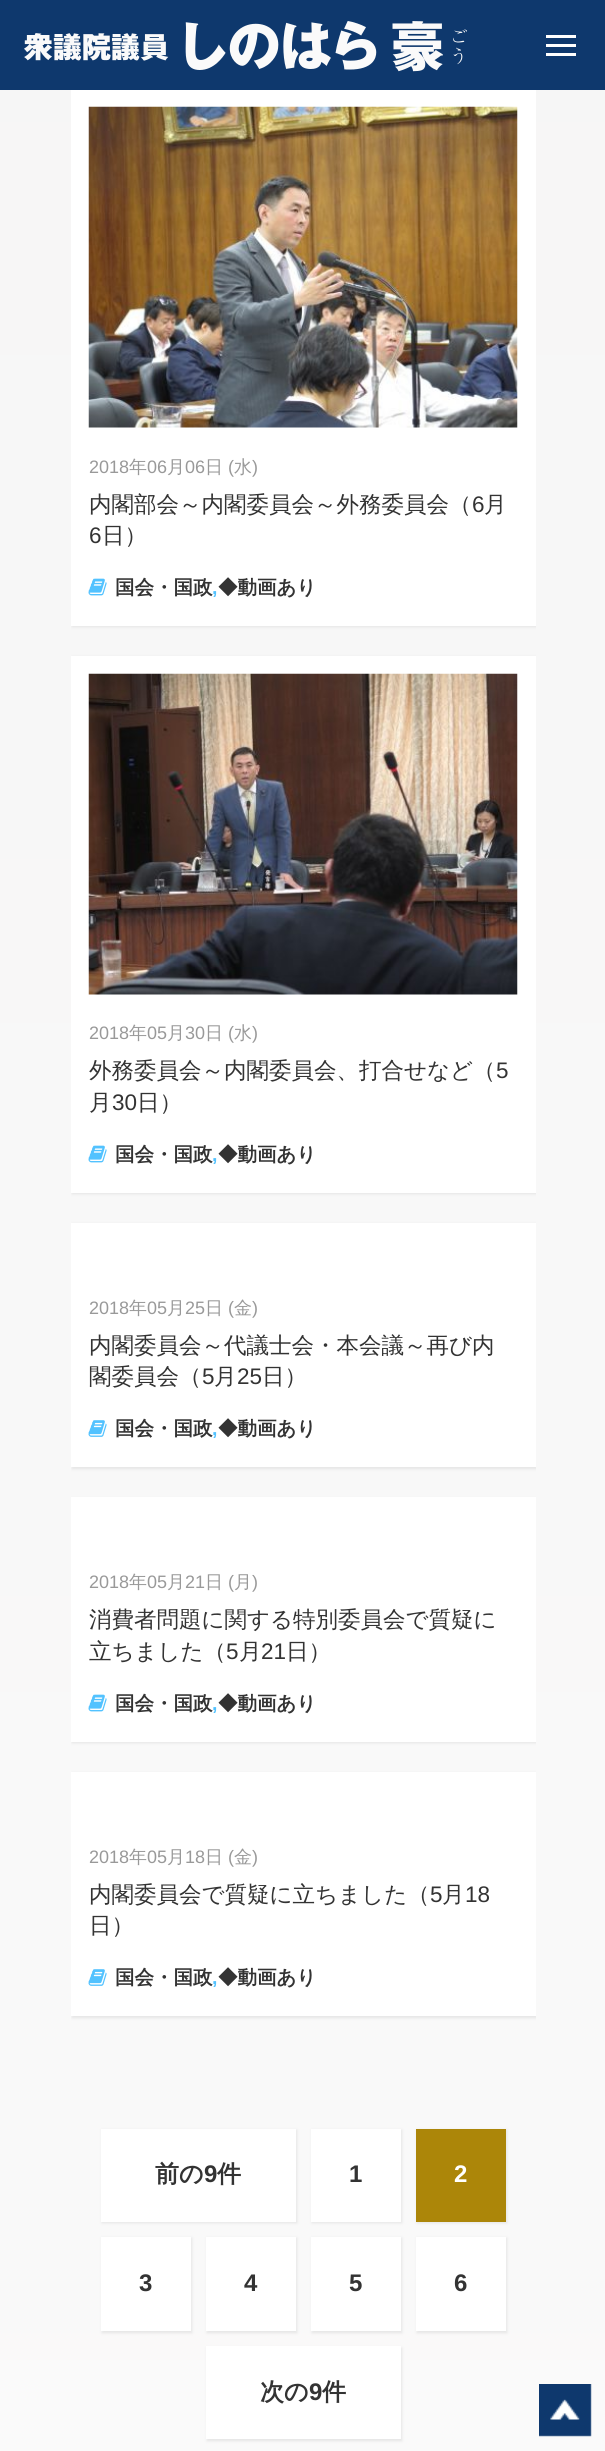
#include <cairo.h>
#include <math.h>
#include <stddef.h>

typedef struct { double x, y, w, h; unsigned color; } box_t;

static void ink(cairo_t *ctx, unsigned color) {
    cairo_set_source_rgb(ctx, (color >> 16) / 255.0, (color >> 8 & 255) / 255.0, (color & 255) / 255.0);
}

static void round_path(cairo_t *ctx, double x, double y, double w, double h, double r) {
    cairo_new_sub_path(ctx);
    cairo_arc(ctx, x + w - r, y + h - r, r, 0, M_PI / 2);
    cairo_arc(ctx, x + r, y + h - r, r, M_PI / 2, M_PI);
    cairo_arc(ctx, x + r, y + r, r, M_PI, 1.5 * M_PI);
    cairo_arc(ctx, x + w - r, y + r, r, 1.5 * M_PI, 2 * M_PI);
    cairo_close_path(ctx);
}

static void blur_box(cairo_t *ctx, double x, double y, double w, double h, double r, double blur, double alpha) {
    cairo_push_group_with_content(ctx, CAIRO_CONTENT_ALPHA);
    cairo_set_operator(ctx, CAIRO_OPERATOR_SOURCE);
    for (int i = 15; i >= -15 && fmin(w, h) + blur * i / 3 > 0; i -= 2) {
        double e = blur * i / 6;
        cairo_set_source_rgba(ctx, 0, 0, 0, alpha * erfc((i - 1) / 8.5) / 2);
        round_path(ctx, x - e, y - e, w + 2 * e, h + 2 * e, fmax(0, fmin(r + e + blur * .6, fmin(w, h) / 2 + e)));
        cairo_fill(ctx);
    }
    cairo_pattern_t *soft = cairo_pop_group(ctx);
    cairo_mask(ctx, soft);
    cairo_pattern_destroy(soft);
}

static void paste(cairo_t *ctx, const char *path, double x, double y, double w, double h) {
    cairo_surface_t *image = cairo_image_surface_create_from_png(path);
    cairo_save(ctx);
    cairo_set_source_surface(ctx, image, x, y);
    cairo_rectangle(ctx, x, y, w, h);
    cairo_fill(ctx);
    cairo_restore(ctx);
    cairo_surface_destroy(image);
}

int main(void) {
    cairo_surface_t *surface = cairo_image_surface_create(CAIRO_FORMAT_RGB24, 605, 2451);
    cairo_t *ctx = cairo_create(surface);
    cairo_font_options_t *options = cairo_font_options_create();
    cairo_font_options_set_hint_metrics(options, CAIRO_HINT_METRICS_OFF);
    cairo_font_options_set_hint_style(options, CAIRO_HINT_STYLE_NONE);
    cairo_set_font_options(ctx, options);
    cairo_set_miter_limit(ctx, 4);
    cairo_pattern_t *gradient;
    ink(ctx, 0xFFFFFF);
    cairo_paint(ctx);
    gradient = cairo_pattern_create_linear(303, -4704, 303, 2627);
    cairo_pattern_add_color_stop_rgba(gradient, 0, 0.941, 0.937, 0.937, 1);
    cairo_pattern_add_color_stop_rgba(gradient, 1, 0.98, 0.98, 0.98, 1);
    cairo_set_source(ctx, gradient);
    cairo_pattern_destroy(gradient);
    cairo_rectangle(ctx, 0, 90, 605, 2361);
    cairo_fill(ctx);
    cairo_save(ctx);
    cairo_rectangle(ctx, 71, 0, 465, 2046);
    cairo_clip(ctx);
    ink(ctx, 0xE5E5E5);
    blur_box(ctx, 72, 90, 465, 537, 0, 1.5, 1);
    cairo_restore(ctx);
    ink(ctx, 0x0E386D);
    cairo_rectangle(ctx, 0, 0, 605, 90);
    cairo_fill(ctx);
    paste(ctx, "media/1.png", 24, 21, 443, 51);
    {
        static const box_t items[] = {
            {546, 35, 30, 3, 0xFFFFFF},
            {546, 44, 30, 3, 0xFFFFFF},
            {546, 53, 30, 3, 0xFFFFFF},
            {71, 90, 465, 536, 0xFFFFFF},
        };
        for (size_t i = 0; i < sizeof items / sizeof *items; i++) {
            ink(ctx, items[i].color);
            cairo_rectangle(ctx, items[i].x, items[i].y, items[i].w, items[i].h);
            cairo_fill(ctx);
        }
    }
    paste(ctx, "media/2.png", 88, 106, 430, 322);
    cairo_select_font_face(ctx, "Liberation Sans", CAIRO_FONT_SLANT_NORMAL, CAIRO_FONT_WEIGHT_NORMAL);
    cairo_set_font_size(ctx, 18);
    ink(ctx, 0x999999);
    cairo_move_to(ctx, 89, 473);
    cairo_show_text(ctx, "2018");
    cairo_select_font_face(ctx, "WenQuanYi Zen Hei Medium", CAIRO_FONT_SLANT_NORMAL, CAIRO_FONT_WEIGHT_NORMAL);
    cairo_move_to(ctx, 129, 473);
    cairo_show_text(ctx, "年");
    cairo_select_font_face(ctx, "Liberation Sans", CAIRO_FONT_SLANT_NORMAL, CAIRO_FONT_WEIGHT_NORMAL);
    cairo_move_to(ctx, 147, 473);
    cairo_show_text(ctx, "06");
    cairo_select_font_face(ctx, "WenQuanYi Zen Hei Medium", CAIRO_FONT_SLANT_NORMAL, CAIRO_FONT_WEIGHT_NORMAL);
    cairo_move_to(ctx, 167, 473);
    cairo_show_text(ctx, "月");
    cairo_select_font_face(ctx, "Liberation Sans", CAIRO_FONT_SLANT_NORMAL, CAIRO_FONT_WEIGHT_NORMAL);
    cairo_move_to(ctx, 185, 473);
    cairo_show_text(ctx, "06");
    cairo_select_font_face(ctx, "WenQuanYi Zen Hei Medium", CAIRO_FONT_SLANT_NORMAL, CAIRO_FONT_WEIGHT_NORMAL);
    cairo_move_to(ctx, 205, 473);
    cairo_show_text(ctx, "日");
    cairo_select_font_face(ctx, "Liberation Sans", CAIRO_FONT_SLANT_NORMAL, CAIRO_FONT_WEIGHT_NORMAL);
    cairo_move_to(ctx, 228, 473);
    cairo_show_text(ctx, "(");
    cairo_select_font_face(ctx, "WenQuanYi Zen Hei Medium", CAIRO_FONT_SLANT_NORMAL, CAIRO_FONT_WEIGHT_NORMAL);
    cairo_move_to(ctx, 234, 473);
    cairo_show_text(ctx, "水");
    cairo_select_font_face(ctx, "Liberation Sans", CAIRO_FONT_SLANT_NORMAL, CAIRO_FONT_WEIGHT_NORMAL);
    cairo_move_to(ctx, 252, 473);
    cairo_show_text(ctx, ")");
    cairo_select_font_face(ctx, "WenQuanYi Zen Hei Medium", CAIRO_FONT_SLANT_NORMAL, CAIRO_FONT_WEIGHT_NORMAL);
    cairo_set_font_size(ctx, 22.5);
    ink(ctx, 0x333333);
    cairo_move_to(ctx, 89, 512);
    cairo_show_text(ctx, "内閣部会～内閣委員会～外務委員会（");
    cairo_select_font_face(ctx, "Liberation Sans", CAIRO_FONT_SLANT_NORMAL, CAIRO_FONT_WEIGHT_NORMAL);
    cairo_move_to(ctx, 472, 512);
    cairo_show_text(ctx, "6");
    cairo_select_font_face(ctx, "WenQuanYi Zen Hei Medium", CAIRO_FONT_SLANT_NORMAL, CAIRO_FONT_WEIGHT_NORMAL);
    cairo_move_to(ctx, 484, 512);
    cairo_show_text(ctx, "月");
    cairo_select_font_face(ctx, "Liberation Sans", CAIRO_FONT_SLANT_NORMAL, CAIRO_FONT_WEIGHT_NORMAL);
    cairo_move_to(ctx, 89, 543);
    cairo_show_text(ctx, "6");
    cairo_select_font_face(ctx, "WenQuanYi Zen Hei Medium", CAIRO_FONT_SLANT_NORMAL, CAIRO_FONT_WEIGHT_NORMAL);
    cairo_move_to(ctx, 102, 543);
    cairo_show_text(ctx, "日）");
    paste(ctx, "media/3.png", 88, 578, 19, 18);
    cairo_select_font_face(ctx, "WenQuanYi Zen Hei", CAIRO_FONT_SLANT_NORMAL, CAIRO_FONT_WEIGHT_BOLD);
    cairo_set_font_size(ctx, 19.5);
    cairo_move_to(ctx, 115, 594);
    cairo_show_text(ctx, "国会・国政");
    cairo_select_font_face(ctx, "Liberation Sans", CAIRO_FONT_SLANT_NORMAL, CAIRO_FONT_WEIGHT_BOLD);
    ink(ctx, 0x52C2FF);
    cairo_move_to(ctx, 212, 594);
    cairo_show_text(ctx, ",");
    cairo_select_font_face(ctx, "WenQuanYi Zen Hei", CAIRO_FONT_SLANT_NORMAL, CAIRO_FONT_WEIGHT_BOLD);
    ink(ctx, 0x333333);
    cairo_move_to(ctx, 218, 594);
    cairo_show_text(ctx, "◆動画あり");
    cairo_save(ctx);
    cairo_rectangle(ctx, 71, 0, 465, 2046);
    cairo_clip(ctx);
    ink(ctx, 0xE5E5E5);
    blur_box(ctx, 72, 657, 465, 537, 0, 1.5, 1);
    cairo_restore(ctx);
    ink(ctx, 0xFFFFFF);
    cairo_rectangle(ctx, 71, 656, 465, 537);
    cairo_fill(ctx);
    paste(ctx, "media/4.png", 88, 673, 430, 322);
    cairo_select_font_face(ctx, "Liberation Sans", CAIRO_FONT_SLANT_NORMAL, CAIRO_FONT_WEIGHT_NORMAL);
    cairo_set_font_size(ctx, 18);
    ink(ctx, 0x999999);
    cairo_move_to(ctx, 89, 1039);
    cairo_show_text(ctx, "2018");
    cairo_select_font_face(ctx, "WenQuanYi Zen Hei Medium", CAIRO_FONT_SLANT_NORMAL, CAIRO_FONT_WEIGHT_NORMAL);
    cairo_move_to(ctx, 129, 1039);
    cairo_show_text(ctx, "年");
    cairo_select_font_face(ctx, "Liberation Sans", CAIRO_FONT_SLANT_NORMAL, CAIRO_FONT_WEIGHT_NORMAL);
    cairo_move_to(ctx, 147, 1039);
    cairo_show_text(ctx, "05");
    cairo_select_font_face(ctx, "WenQuanYi Zen Hei Medium", CAIRO_FONT_SLANT_NORMAL, CAIRO_FONT_WEIGHT_NORMAL);
    cairo_move_to(ctx, 167, 1039);
    cairo_show_text(ctx, "月");
    cairo_select_font_face(ctx, "Liberation Sans", CAIRO_FONT_SLANT_NORMAL, CAIRO_FONT_WEIGHT_NORMAL);
    cairo_move_to(ctx, 185, 1039);
    cairo_show_text(ctx, "30");
    cairo_select_font_face(ctx, "WenQuanYi Zen Hei Medium", CAIRO_FONT_SLANT_NORMAL, CAIRO_FONT_WEIGHT_NORMAL);
    cairo_move_to(ctx, 205, 1039);
    cairo_show_text(ctx, "日");
    cairo_select_font_face(ctx, "Liberation Sans", CAIRO_FONT_SLANT_NORMAL, CAIRO_FONT_WEIGHT_NORMAL);
    cairo_move_to(ctx, 228, 1039);
    cairo_show_text(ctx, "(");
    cairo_select_font_face(ctx, "WenQuanYi Zen Hei Medium", CAIRO_FONT_SLANT_NORMAL, CAIRO_FONT_WEIGHT_NORMAL);
    cairo_move_to(ctx, 234, 1039);
    cairo_show_text(ctx, "水");
    cairo_select_font_face(ctx, "Liberation Sans", CAIRO_FONT_SLANT_NORMAL, CAIRO_FONT_WEIGHT_NORMAL);
    cairo_move_to(ctx, 252, 1039);
    cairo_show_text(ctx, ")");
    cairo_select_font_face(ctx, "WenQuanYi Zen Hei Medium", CAIRO_FONT_SLANT_NORMAL, CAIRO_FONT_WEIGHT_NORMAL);
    cairo_set_font_size(ctx, 22.5);
    ink(ctx, 0x333333);
    cairo_move_to(ctx, 89, 1078);
    cairo_show_text(ctx, "外務委員会～内閣委員会、打合せなど（");
    cairo_select_font_face(ctx, "Liberation Sans", CAIRO_FONT_SLANT_NORMAL, CAIRO_FONT_WEIGHT_NORMAL);
    cairo_move_to(ctx, 496, 1078);
    cairo_show_text(ctx, "5");
    cairo_select_font_face(ctx, "WenQuanYi Zen Hei Medium", CAIRO_FONT_SLANT_NORMAL, CAIRO_FONT_WEIGHT_NORMAL);
    cairo_move_to(ctx, 89, 1110);
    cairo_show_text(ctx, "月");
    cairo_select_font_face(ctx, "Liberation Sans", CAIRO_FONT_SLANT_NORMAL, CAIRO_FONT_WEIGHT_NORMAL);
    cairo_move_to(ctx, 112, 1110);
    cairo_show_text(ctx, "30");
    cairo_select_font_face(ctx, "WenQuanYi Zen Hei Medium", CAIRO_FONT_SLANT_NORMAL, CAIRO_FONT_WEIGHT_NORMAL);
    cairo_move_to(ctx, 137, 1110);
    cairo_show_text(ctx, "日）");
    paste(ctx, "media/3.png", 88, 1145, 19, 18);
    cairo_select_font_face(ctx, "WenQuanYi Zen Hei", CAIRO_FONT_SLANT_NORMAL, CAIRO_FONT_WEIGHT_BOLD);
    cairo_set_font_size(ctx, 19.5);
    cairo_move_to(ctx, 115, 1161);
    cairo_show_text(ctx, "国会・国政");
    cairo_select_font_face(ctx, "Liberation Sans", CAIRO_FONT_SLANT_NORMAL, CAIRO_FONT_WEIGHT_BOLD);
    ink(ctx, 0x52C2FF);
    cairo_move_to(ctx, 212, 1161);
    cairo_show_text(ctx, ",");
    cairo_select_font_face(ctx, "WenQuanYi Zen Hei", CAIRO_FONT_SLANT_NORMAL, CAIRO_FONT_WEIGHT_BOLD);
    ink(ctx, 0x333333);
    cairo_move_to(ctx, 218, 1161);
    cairo_show_text(ctx, "◆動画あり");
    cairo_save(ctx);
    cairo_rectangle(ctx, 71, 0, 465, 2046);
    cairo_clip(ctx);
    ink(ctx, 0xE5E5E5);
    blur_box(ctx, 72, 1224, 465, 245, 0, 1.5, 1);
    cairo_restore(ctx);
    ink(ctx, 0xFFFFFF);
    cairo_rectangle(ctx, 71, 1223, 465, 244);
    cairo_fill(ctx);
    cairo_select_font_face(ctx, "Liberation Sans", CAIRO_FONT_SLANT_NORMAL, CAIRO_FONT_WEIGHT_NORMAL);
    cairo_set_font_size(ctx, 18);
    ink(ctx, 0x999999);
    cairo_move_to(ctx, 89, 1314);
    cairo_show_text(ctx, "2018");
    cairo_select_font_face(ctx, "WenQuanYi Zen Hei Medium", CAIRO_FONT_SLANT_NORMAL, CAIRO_FONT_WEIGHT_NORMAL);
    cairo_move_to(ctx, 129, 1314);
    cairo_show_text(ctx, "年");
    cairo_select_font_face(ctx, "Liberation Sans", CAIRO_FONT_SLANT_NORMAL, CAIRO_FONT_WEIGHT_NORMAL);
    cairo_move_to(ctx, 147, 1314);
    cairo_show_text(ctx, "05");
    cairo_select_font_face(ctx, "WenQuanYi Zen Hei Medium", CAIRO_FONT_SLANT_NORMAL, CAIRO_FONT_WEIGHT_NORMAL);
    cairo_move_to(ctx, 167, 1314);
    cairo_show_text(ctx, "月");
    cairo_select_font_face(ctx, "Liberation Sans", CAIRO_FONT_SLANT_NORMAL, CAIRO_FONT_WEIGHT_NORMAL);
    cairo_move_to(ctx, 185, 1314);
    cairo_show_text(ctx, "25");
    cairo_select_font_face(ctx, "WenQuanYi Zen Hei Medium", CAIRO_FONT_SLANT_NORMAL, CAIRO_FONT_WEIGHT_NORMAL);
    cairo_move_to(ctx, 205, 1314);
    cairo_show_text(ctx, "日");
    cairo_select_font_face(ctx, "Liberation Sans", CAIRO_FONT_SLANT_NORMAL, CAIRO_FONT_WEIGHT_NORMAL);
    cairo_move_to(ctx, 228, 1314);
    cairo_show_text(ctx, "(");
    cairo_select_font_face(ctx, "WenQuanYi Zen Hei Medium", CAIRO_FONT_SLANT_NORMAL, CAIRO_FONT_WEIGHT_NORMAL);
    cairo_move_to(ctx, 234, 1314);
    cairo_show_text(ctx, "金");
    cairo_select_font_face(ctx, "Liberation Sans", CAIRO_FONT_SLANT_NORMAL, CAIRO_FONT_WEIGHT_NORMAL);
    cairo_move_to(ctx, 252, 1314);
    cairo_show_text(ctx, ")");
    cairo_select_font_face(ctx, "WenQuanYi Zen Hei Medium", CAIRO_FONT_SLANT_NORMAL, CAIRO_FONT_WEIGHT_NORMAL);
    cairo_set_font_size(ctx, 22.5);
    ink(ctx, 0x333333);
    cairo_move_to(ctx, 89, 1353);
    cairo_show_text(ctx, "内閣委員会～代議士会・本会議～再び内");
    cairo_move_to(ctx, 89, 1384);
    cairo_show_text(ctx, "閣委員会（");
    cairo_select_font_face(ctx, "Liberation Sans", CAIRO_FONT_SLANT_NORMAL, CAIRO_FONT_WEIGHT_NORMAL);
    cairo_move_to(ctx, 202, 1384);
    cairo_show_text(ctx, "5");
    cairo_select_font_face(ctx, "WenQuanYi Zen Hei Medium", CAIRO_FONT_SLANT_NORMAL, CAIRO_FONT_WEIGHT_NORMAL);
    cairo_move_to(ctx, 214, 1384);
    cairo_show_text(ctx, "月");
    cairo_select_font_face(ctx, "Liberation Sans", CAIRO_FONT_SLANT_NORMAL, CAIRO_FONT_WEIGHT_NORMAL);
    cairo_move_to(ctx, 237, 1384);
    cairo_show_text(ctx, "25");
    cairo_select_font_face(ctx, "WenQuanYi Zen Hei Medium", CAIRO_FONT_SLANT_NORMAL, CAIRO_FONT_WEIGHT_NORMAL);
    cairo_move_to(ctx, 262, 1384);
    cairo_show_text(ctx, "日）");
    paste(ctx, "media/5.png", 88, 1420, 19, 17);
    cairo_select_font_face(ctx, "WenQuanYi Zen Hei", CAIRO_FONT_SLANT_NORMAL, CAIRO_FONT_WEIGHT_BOLD);
    cairo_set_font_size(ctx, 19.5);
    cairo_move_to(ctx, 115, 1435);
    cairo_show_text(ctx, "国会・国政");
    cairo_select_font_face(ctx, "Liberation Sans", CAIRO_FONT_SLANT_NORMAL, CAIRO_FONT_WEIGHT_BOLD);
    ink(ctx, 0x52C2FF);
    cairo_move_to(ctx, 212, 1435);
    cairo_show_text(ctx, ",");
    cairo_select_font_face(ctx, "WenQuanYi Zen Hei", CAIRO_FONT_SLANT_NORMAL, CAIRO_FONT_WEIGHT_BOLD);
    ink(ctx, 0x333333);
    cairo_move_to(ctx, 218, 1435);
    cairo_show_text(ctx, "◆動画あり");
    cairo_save(ctx);
    cairo_rectangle(ctx, 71, 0, 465, 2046);
    cairo_clip(ctx);
    ink(ctx, 0xE5E5E5);
    blur_box(ctx, 72, 1499, 465, 244, 0, 1.5, 1);
    cairo_restore(ctx);
    ink(ctx, 0xFFFFFF);
    cairo_rectangle(ctx, 71, 1497, 465, 245);
    cairo_fill(ctx);
    cairo_select_font_face(ctx, "Liberation Sans", CAIRO_FONT_SLANT_NORMAL, CAIRO_FONT_WEIGHT_NORMAL);
    cairo_set_font_size(ctx, 18);
    ink(ctx, 0x999999);
    cairo_move_to(ctx, 89, 1588);
    cairo_show_text(ctx, "2018");
    cairo_select_font_face(ctx, "WenQuanYi Zen Hei Medium", CAIRO_FONT_SLANT_NORMAL, CAIRO_FONT_WEIGHT_NORMAL);
    cairo_move_to(ctx, 129, 1588);
    cairo_show_text(ctx, "年");
    cairo_select_font_face(ctx, "Liberation Sans", CAIRO_FONT_SLANT_NORMAL, CAIRO_FONT_WEIGHT_NORMAL);
    cairo_move_to(ctx, 147, 1588);
    cairo_show_text(ctx, "05");
    cairo_select_font_face(ctx, "WenQuanYi Zen Hei Medium", CAIRO_FONT_SLANT_NORMAL, CAIRO_FONT_WEIGHT_NORMAL);
    cairo_move_to(ctx, 167, 1588);
    cairo_show_text(ctx, "月");
    cairo_select_font_face(ctx, "Liberation Sans", CAIRO_FONT_SLANT_NORMAL, CAIRO_FONT_WEIGHT_NORMAL);
    cairo_move_to(ctx, 185, 1588);
    cairo_show_text(ctx, "21");
    cairo_select_font_face(ctx, "WenQuanYi Zen Hei Medium", CAIRO_FONT_SLANT_NORMAL, CAIRO_FONT_WEIGHT_NORMAL);
    cairo_move_to(ctx, 205, 1588);
    cairo_show_text(ctx, "日");
    cairo_select_font_face(ctx, "Liberation Sans", CAIRO_FONT_SLANT_NORMAL, CAIRO_FONT_WEIGHT_NORMAL);
    cairo_move_to(ctx, 228, 1588);
    cairo_show_text(ctx, "(");
    cairo_select_font_face(ctx, "WenQuanYi Zen Hei Medium", CAIRO_FONT_SLANT_NORMAL, CAIRO_FONT_WEIGHT_NORMAL);
    cairo_move_to(ctx, 234, 1588);
    cairo_show_text(ctx, "月");
    cairo_select_font_face(ctx, "Liberation Sans", CAIRO_FONT_SLANT_NORMAL, CAIRO_FONT_WEIGHT_NORMAL);
    cairo_move_to(ctx, 252, 1588);
    cairo_show_text(ctx, ")");
    cairo_select_font_face(ctx, "WenQuanYi Zen Hei Medium", CAIRO_FONT_SLANT_NORMAL, CAIRO_FONT_WEIGHT_NORMAL);
    cairo_set_font_size(ctx, 22.5);
    ink(ctx, 0x333333);
    cairo_move_to(ctx, 89, 1627);
    cairo_show_text(ctx, "消費者問題に関する特別委員会で質疑に");
    cairo_move_to(ctx, 89, 1659);
    cairo_show_text(ctx, "立ちました（");
    cairo_select_font_face(ctx, "Liberation Sans", CAIRO_FONT_SLANT_NORMAL, CAIRO_FONT_WEIGHT_NORMAL);
    cairo_move_to(ctx, 226, 1659);
    cairo_show_text(ctx, "5");
    cairo_select_font_face(ctx, "WenQuanYi Zen Hei Medium", CAIRO_FONT_SLANT_NORMAL, CAIRO_FONT_WEIGHT_NORMAL);
    cairo_move_to(ctx, 239, 1659);
    cairo_show_text(ctx, "月");
    cairo_select_font_face(ctx, "Liberation Sans", CAIRO_FONT_SLANT_NORMAL, CAIRO_FONT_WEIGHT_NORMAL);
    cairo_move_to(ctx, 261, 1659);
    cairo_show_text(ctx, "21");
    cairo_select_font_face(ctx, "WenQuanYi Zen Hei Medium", CAIRO_FONT_SLANT_NORMAL, CAIRO_FONT_WEIGHT_NORMAL);
    cairo_move_to(ctx, 286, 1659);
    cairo_show_text(ctx, "日）");
    paste(ctx, "media/3.png", 88, 1694, 19, 18);
    cairo_select_font_face(ctx, "WenQuanYi Zen Hei", CAIRO_FONT_SLANT_NORMAL, CAIRO_FONT_WEIGHT_BOLD);
    cairo_set_font_size(ctx, 19.5);
    cairo_move_to(ctx, 115, 1710);
    cairo_show_text(ctx, "国会・国政");
    cairo_select_font_face(ctx, "Liberation Sans", CAIRO_FONT_SLANT_NORMAL, CAIRO_FONT_WEIGHT_BOLD);
    ink(ctx, 0x52C2FF);
    cairo_move_to(ctx, 212, 1710);
    cairo_show_text(ctx, ",");
    cairo_select_font_face(ctx, "WenQuanYi Zen Hei", CAIRO_FONT_SLANT_NORMAL, CAIRO_FONT_WEIGHT_BOLD);
    ink(ctx, 0x333333);
    cairo_move_to(ctx, 218, 1710);
    cairo_show_text(ctx, "◆動画あり");
    cairo_save(ctx);
    cairo_rectangle(ctx, 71, 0, 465, 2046);
    cairo_clip(ctx);
    ink(ctx, 0xE5E5E5);
    blur_box(ctx, 72, 1773, 465, 245, 0, 1.5, 1);
    cairo_restore(ctx);
    ink(ctx, 0xFFFFFF);
    cairo_rectangle(ctx, 71, 1772, 465, 244);
    cairo_fill(ctx);
    cairo_select_font_face(ctx, "Liberation Sans", CAIRO_FONT_SLANT_NORMAL, CAIRO_FONT_WEIGHT_NORMAL);
    cairo_set_font_size(ctx, 18);
    ink(ctx, 0x999999);
    cairo_move_to(ctx, 89, 1863);
    cairo_show_text(ctx, "2018");
    cairo_select_font_face(ctx, "WenQuanYi Zen Hei Medium", CAIRO_FONT_SLANT_NORMAL, CAIRO_FONT_WEIGHT_NORMAL);
    cairo_move_to(ctx, 129, 1863);
    cairo_show_text(ctx, "年");
    cairo_select_font_face(ctx, "Liberation Sans", CAIRO_FONT_SLANT_NORMAL, CAIRO_FONT_WEIGHT_NORMAL);
    cairo_move_to(ctx, 147, 1863);
    cairo_show_text(ctx, "05");
    cairo_select_font_face(ctx, "WenQuanYi Zen Hei Medium", CAIRO_FONT_SLANT_NORMAL, CAIRO_FONT_WEIGHT_NORMAL);
    cairo_move_to(ctx, 167, 1863);
    cairo_show_text(ctx, "月");
    cairo_select_font_face(ctx, "Liberation Sans", CAIRO_FONT_SLANT_NORMAL, CAIRO_FONT_WEIGHT_NORMAL);
    cairo_move_to(ctx, 185, 1863);
    cairo_show_text(ctx, "18");
    cairo_select_font_face(ctx, "WenQuanYi Zen Hei Medium", CAIRO_FONT_SLANT_NORMAL, CAIRO_FONT_WEIGHT_NORMAL);
    cairo_move_to(ctx, 205, 1863);
    cairo_show_text(ctx, "日");
    cairo_select_font_face(ctx, "Liberation Sans", CAIRO_FONT_SLANT_NORMAL, CAIRO_FONT_WEIGHT_NORMAL);
    cairo_move_to(ctx, 228, 1863);
    cairo_show_text(ctx, "(");
    cairo_select_font_face(ctx, "WenQuanYi Zen Hei Medium", CAIRO_FONT_SLANT_NORMAL, CAIRO_FONT_WEIGHT_NORMAL);
    cairo_move_to(ctx, 234, 1863);
    cairo_show_text(ctx, "金");
    cairo_select_font_face(ctx, "Liberation Sans", CAIRO_FONT_SLANT_NORMAL, CAIRO_FONT_WEIGHT_NORMAL);
    cairo_move_to(ctx, 252, 1863);
    cairo_show_text(ctx, ")");
    cairo_select_font_face(ctx, "WenQuanYi Zen Hei Medium", CAIRO_FONT_SLANT_NORMAL, CAIRO_FONT_WEIGHT_NORMAL);
    cairo_set_font_size(ctx, 22.5);
    ink(ctx, 0x333333);
    cairo_move_to(ctx, 89, 1902);
    cairo_show_text(ctx, "内閣委員会で質疑に立ちました（");
    cairo_select_font_face(ctx, "Liberation Sans", CAIRO_FONT_SLANT_NORMAL, CAIRO_FONT_WEIGHT_NORMAL);
    cairo_move_to(ctx, 430, 1902);
    cairo_show_text(ctx, "5");
    cairo_select_font_face(ctx, "WenQuanYi Zen Hei Medium", CAIRO_FONT_SLANT_NORMAL, CAIRO_FONT_WEIGHT_NORMAL);
    cairo_move_to(ctx, 442, 1902);
    cairo_show_text(ctx, "月");
    cairo_select_font_face(ctx, "Liberation Sans", CAIRO_FONT_SLANT_NORMAL, CAIRO_FONT_WEIGHT_NORMAL);
    cairo_move_to(ctx, 465, 1902);
    cairo_show_text(ctx, "18");
    cairo_select_font_face(ctx, "WenQuanYi Zen Hei Medium", CAIRO_FONT_SLANT_NORMAL, CAIRO_FONT_WEIGHT_NORMAL);
    cairo_move_to(ctx, 89, 1933);
    cairo_show_text(ctx, "日）");
    paste(ctx, "media/5.png", 88, 1969, 19, 17);
    cairo_select_font_face(ctx, "WenQuanYi Zen Hei", CAIRO_FONT_SLANT_NORMAL, CAIRO_FONT_WEIGHT_BOLD);
    cairo_set_font_size(ctx, 19.5);
    cairo_move_to(ctx, 115, 1984);
    cairo_show_text(ctx, "国会・国政");
    cairo_select_font_face(ctx, "Liberation Sans", CAIRO_FONT_SLANT_NORMAL, CAIRO_FONT_WEIGHT_BOLD);
    ink(ctx, 0x52C2FF);
    cairo_move_to(ctx, 212, 1984);
    cairo_show_text(ctx, ",");
    cairo_select_font_face(ctx, "WenQuanYi Zen Hei", CAIRO_FONT_SLANT_NORMAL, CAIRO_FONT_WEIGHT_BOLD);
    ink(ctx, 0x333333);
    cairo_move_to(ctx, 218, 1984);
    cairo_show_text(ctx, "◆動画あり");
    ink(ctx, 0xE5E5E5);
    blur_box(ctx, 102, 2130, 195, 93, 0, 1.5, 1);
    ink(ctx, 0xFFFFFF);
    cairo_rectangle(ctx, 101, 2129, 195, 93);
    cairo_fill(ctx);
    cairo_set_font_size(ctx, 24);
    ink(ctx, 0x333333);
    cairo_move_to(ctx, 155, 2182);
    cairo_show_text(ctx, "前の");
    cairo_select_font_face(ctx, "Liberation Sans", CAIRO_FONT_SLANT_NORMAL, CAIRO_FONT_WEIGHT_BOLD);
    cairo_move_to(ctx, 204, 2182);
    cairo_show_text(ctx, "9");
    cairo_select_font_face(ctx, "WenQuanYi Zen Hei", CAIRO_FONT_SLANT_NORMAL, CAIRO_FONT_WEIGHT_BOLD);
    cairo_move_to(ctx, 217, 2182);
    cairo_show_text(ctx, "件");
    ink(ctx, 0xE5E5E5);
    blur_box(ctx, 312, 2130, 90, 93, 0, 1.5, 1);
    ink(ctx, 0xFFFFFF);
    cairo_rectangle(ctx, 311, 2129, 90, 93);
    cairo_fill(ctx);
    cairo_select_font_face(ctx, "Liberation Sans", CAIRO_FONT_SLANT_NORMAL, CAIRO_FONT_WEIGHT_BOLD);
    ink(ctx, 0x333333);
    cairo_move_to(ctx, 349, 2182);
    cairo_show_text(ctx, "1");
    ink(ctx, 0xE5E5E5);
    blur_box(ctx, 417, 2130, 90, 93, 0, 1.5, 1);
    ink(ctx, 0xAC8609);
    cairo_rectangle(ctx, 416, 2129, 90, 93);
    cairo_fill(ctx);
    ink(ctx, 0xFFFFFF);
    cairo_move_to(ctx, 454, 2182);
    cairo_show_text(ctx, "2");
    ink(ctx, 0xE5E5E5);
    blur_box(ctx, 102, 2238, 90, 95, 0, 1.5, 1);
    ink(ctx, 0xFFFFFF);
    cairo_rectangle(ctx, 101, 2237, 90, 94);
    cairo_fill(ctx);
    ink(ctx, 0x333333);
    cairo_move_to(ctx, 139, 2291);
    cairo_show_text(ctx, "3");
    ink(ctx, 0xE5E5E5);
    blur_box(ctx, 207, 2238, 90, 95, 0, 1.5, 1);
    ink(ctx, 0xFFFFFF);
    cairo_rectangle(ctx, 206, 2237, 90, 94);
    cairo_fill(ctx);
    ink(ctx, 0x333333);
    cairo_move_to(ctx, 244, 2291);
    cairo_show_text(ctx, "4");
    ink(ctx, 0xE5E5E5);
    blur_box(ctx, 312, 2238, 90, 95, 0, 1.5, 1);
    ink(ctx, 0xFFFFFF);
    cairo_rectangle(ctx, 311, 2237, 90, 94);
    cairo_fill(ctx);
    ink(ctx, 0x333333);
    cairo_move_to(ctx, 349, 2291);
    cairo_show_text(ctx, "5");
    ink(ctx, 0xE5E5E5);
    blur_box(ctx, 417, 2238, 90, 95, 0, 1.5, 1);
    ink(ctx, 0xFFFFFF);
    cairo_rectangle(ctx, 416, 2237, 90, 94);
    cairo_fill(ctx);
    ink(ctx, 0x333333);
    cairo_move_to(ctx, 454, 2291);
    cairo_show_text(ctx, "6");
    ink(ctx, 0xE5E5E5);
    blur_box(ctx, 207, 2348, 195, 93, 0, 1.5, 1);
    ink(ctx, 0xFFFFFF);
    cairo_rectangle(ctx, 206, 2346, 195, 93);
    cairo_fill(ctx);
    cairo_select_font_face(ctx, "WenQuanYi Zen Hei", CAIRO_FONT_SLANT_NORMAL, CAIRO_FONT_WEIGHT_BOLD);
    ink(ctx, 0x333333);
    cairo_move_to(ctx, 260, 2400);
    cairo_show_text(ctx, "次の");
    cairo_select_font_face(ctx, "Liberation Sans", CAIRO_FONT_SLANT_NORMAL, CAIRO_FONT_WEIGHT_BOLD);
    cairo_move_to(ctx, 309, 2400);
    cairo_show_text(ctx, "9");
    cairo_select_font_face(ctx, "WenQuanYi Zen Hei", CAIRO_FONT_SLANT_NORMAL, CAIRO_FONT_WEIGHT_BOLD);
    cairo_move_to(ctx, 322, 2400);
    cairo_show_text(ctx, "件");
    paste(ctx, "media/6.png", 539, 2384, 53, 53);
    cairo_surface_write_to_png(surface, "image.png");
    cairo_font_options_destroy(options);
    cairo_destroy(ctx);
    cairo_surface_destroy(surface);
    return 0;
}
